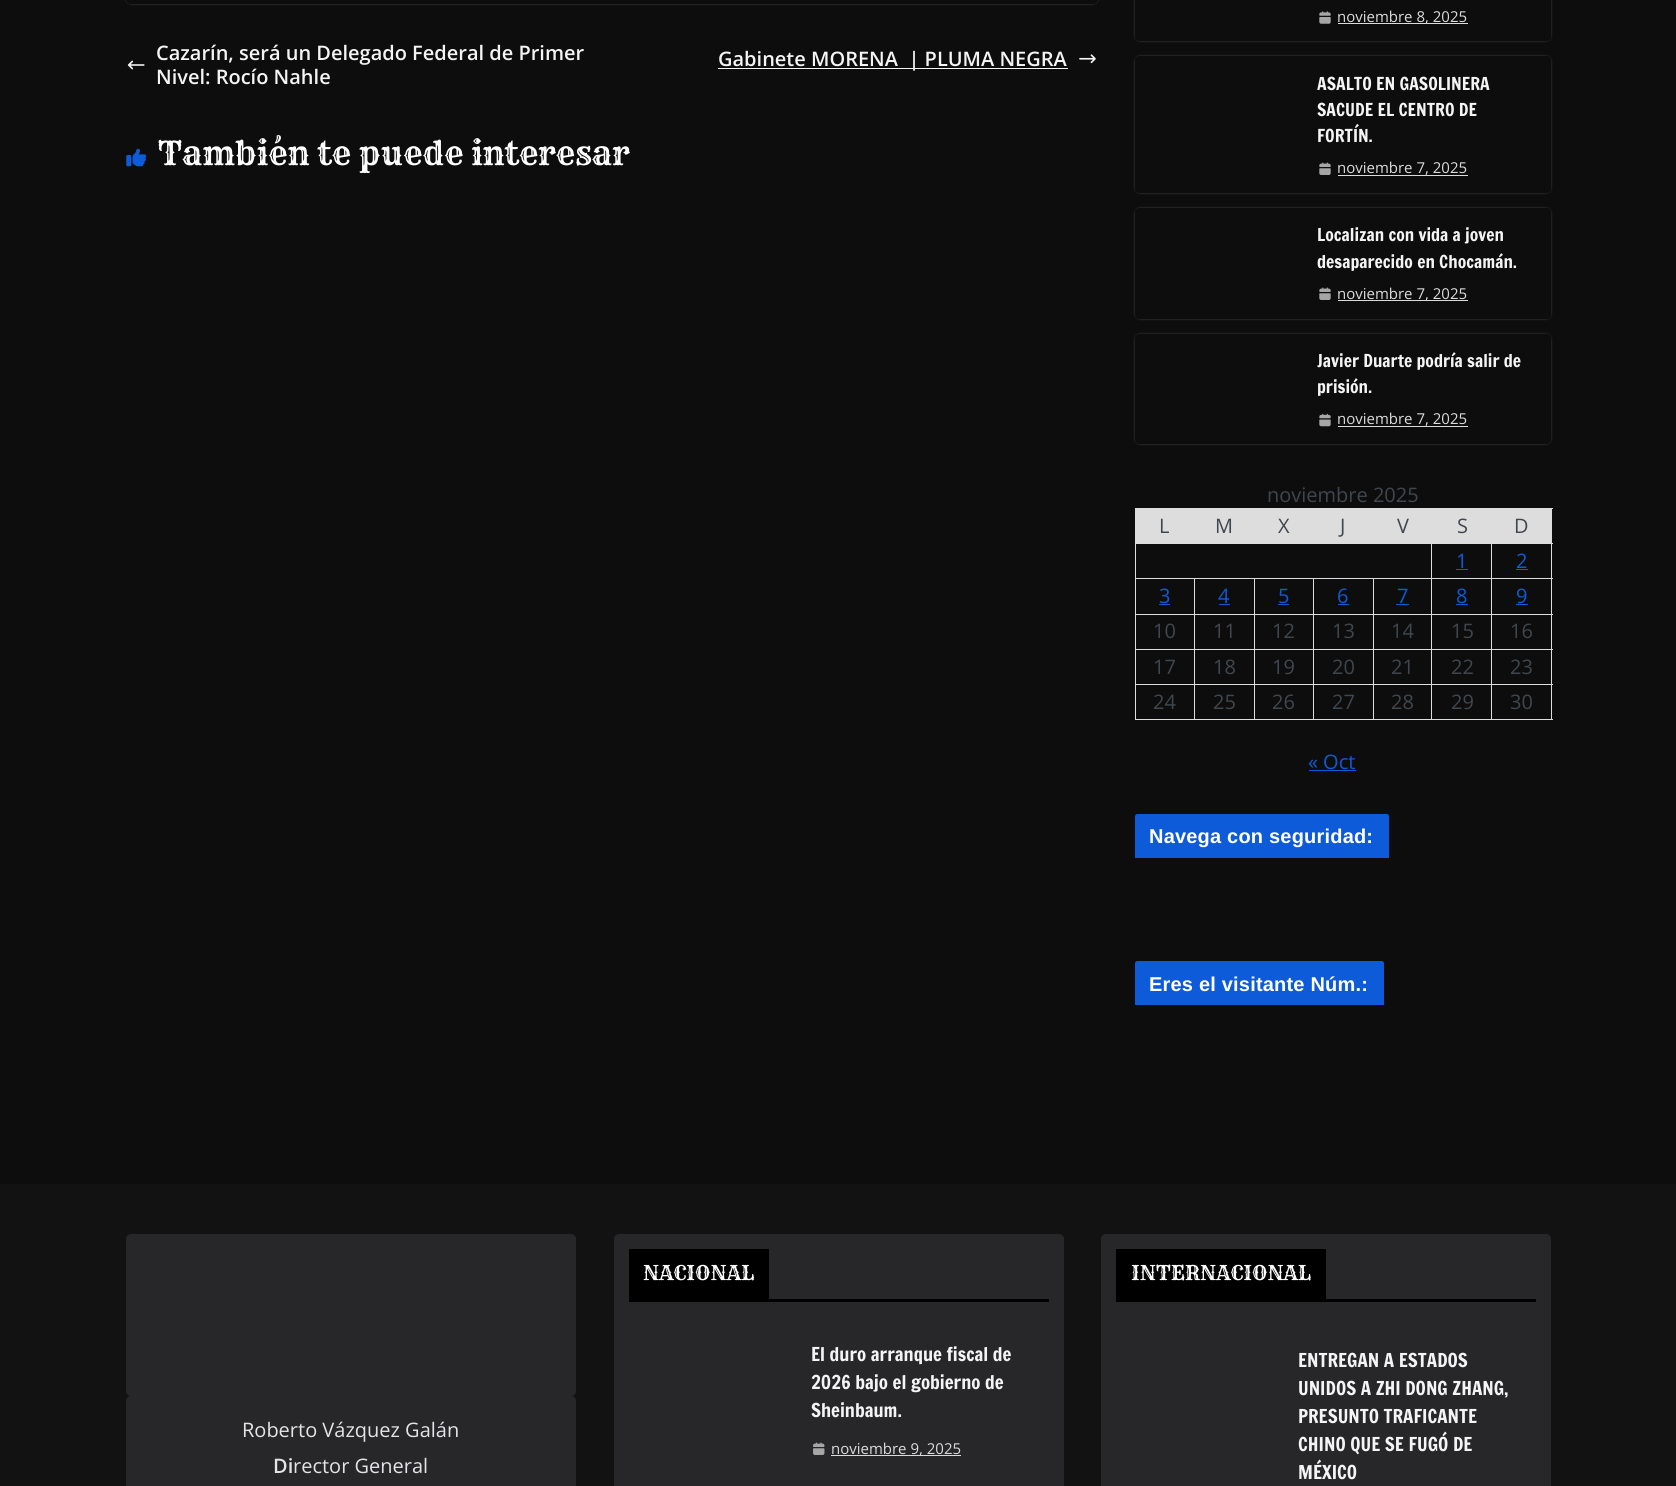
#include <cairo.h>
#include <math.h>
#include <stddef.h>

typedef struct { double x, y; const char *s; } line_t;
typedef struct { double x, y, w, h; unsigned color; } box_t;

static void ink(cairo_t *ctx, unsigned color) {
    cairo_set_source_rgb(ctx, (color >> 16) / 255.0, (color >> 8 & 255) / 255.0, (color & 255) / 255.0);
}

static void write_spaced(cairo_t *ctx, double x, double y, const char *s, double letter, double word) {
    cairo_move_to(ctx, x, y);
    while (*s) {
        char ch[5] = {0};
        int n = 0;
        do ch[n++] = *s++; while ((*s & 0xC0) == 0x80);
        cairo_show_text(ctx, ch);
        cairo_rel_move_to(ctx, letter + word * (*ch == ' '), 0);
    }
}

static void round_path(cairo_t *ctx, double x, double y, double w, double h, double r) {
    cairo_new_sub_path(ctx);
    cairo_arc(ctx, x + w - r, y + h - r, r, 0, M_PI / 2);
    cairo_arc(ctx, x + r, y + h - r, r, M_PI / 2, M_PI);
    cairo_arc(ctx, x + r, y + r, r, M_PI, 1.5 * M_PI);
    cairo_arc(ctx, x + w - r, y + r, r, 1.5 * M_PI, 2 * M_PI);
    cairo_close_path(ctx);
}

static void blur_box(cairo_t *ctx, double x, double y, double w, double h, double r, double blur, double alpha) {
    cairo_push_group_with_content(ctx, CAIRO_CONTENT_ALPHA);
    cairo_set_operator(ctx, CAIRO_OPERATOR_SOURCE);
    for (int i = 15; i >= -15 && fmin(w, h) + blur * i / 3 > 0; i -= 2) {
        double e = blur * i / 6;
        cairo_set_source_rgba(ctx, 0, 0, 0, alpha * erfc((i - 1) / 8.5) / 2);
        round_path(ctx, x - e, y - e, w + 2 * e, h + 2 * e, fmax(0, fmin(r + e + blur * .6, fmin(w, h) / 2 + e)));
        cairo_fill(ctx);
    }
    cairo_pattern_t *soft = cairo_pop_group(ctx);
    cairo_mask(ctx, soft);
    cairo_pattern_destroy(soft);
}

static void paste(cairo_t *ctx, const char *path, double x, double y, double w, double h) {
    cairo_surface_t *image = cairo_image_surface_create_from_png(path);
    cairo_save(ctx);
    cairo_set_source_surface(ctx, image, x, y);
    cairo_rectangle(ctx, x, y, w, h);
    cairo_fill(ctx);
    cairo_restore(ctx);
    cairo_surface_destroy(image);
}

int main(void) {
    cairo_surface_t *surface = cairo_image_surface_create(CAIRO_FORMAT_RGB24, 1676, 1486);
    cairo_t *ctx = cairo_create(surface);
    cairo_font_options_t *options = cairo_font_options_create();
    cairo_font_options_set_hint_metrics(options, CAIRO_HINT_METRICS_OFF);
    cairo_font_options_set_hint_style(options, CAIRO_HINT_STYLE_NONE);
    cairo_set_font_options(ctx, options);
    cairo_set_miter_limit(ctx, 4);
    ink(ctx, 0x0D0D0D);
    cairo_paint(ctx);
    cairo_save(ctx);
    cairo_set_fill_rule(ctx, CAIRO_FILL_RULE_EVEN_ODD);
    cairo_new_path(ctx);
    cairo_move_to(ctx, 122, 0);
    cairo_line_to(ctx, 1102, 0);
    cairo_line_to(ctx, 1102, 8);
    cairo_line_to(ctx, 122, 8);
    cairo_close_path(ctx);
    cairo_move_to(ctx, 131, -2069);
    cairo_line_to(ctx, 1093, -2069);
    cairo_curve_to(ctx, 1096, -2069, 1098, -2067, 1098, -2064);
    cairo_line_to(ctx, 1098, -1);
    cairo_curve_to(ctx, 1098, 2, 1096, 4, 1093, 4);
    cairo_line_to(ctx, 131, 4);
    cairo_curve_to(ctx, 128, 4, 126, 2, 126, -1);
    cairo_line_to(ctx, 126, -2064);
    cairo_curve_to(ctx, 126, -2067, 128, -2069, 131, -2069);
    cairo_close_path(ctx);
    cairo_clip(ctx);
    ink(ctx, 0xFFFFFF);
    blur_box(ctx, 126, -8, 972, 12, 5, 1, 0.24);
    cairo_restore(ctx);
    paste(ctx, "media/1.png", 127, 60, 18, 10);
    cairo_select_font_face(ctx, "Open Sans SemiBold", CAIRO_FONT_SLANT_NORMAL, CAIRO_FONT_WEIGHT_NORMAL);
    cairo_set_font_size(ctx, 20);
    ink(ctx, 0xF4F4F5);
    cairo_move_to(ctx, 156, 60);
    cairo_show_text(ctx, "Cazarín, será un Delegado Federal de Primer");
    cairo_move_to(ctx, 156, 84);
    cairo_show_text(ctx, "Nivel: Rocío Nahle");
    cairo_rectangle(ctx, 718, 68, 350, 1);
    cairo_fill(ctx);
    cairo_move_to(ctx, 718, 66);
    cairo_show_text(ctx, "Gabinete MORENA  | PLUMA NEGRA");
    paste(ctx, "media/2.png", 1079, 54, 17, 10);
    paste(ctx, "media/3.png", 126, 148, 21, 19);
    cairo_select_font_face(ctx, "Rye", CAIRO_FONT_SLANT_NORMAL, CAIRO_FONT_WEIGHT_NORMAL);
    cairo_set_font_size(ctx, 32.5);
    ink(ctx, 0xFFFFFF);
    cairo_move_to(ctx, 158, 165);
    cairo_show_text(ctx, "También te puede interesar");
    cairo_save(ctx);
    cairo_set_fill_rule(ctx, CAIRO_FILL_RULE_EVEN_ODD);
    cairo_new_path(ctx);
    cairo_move_to(ctx, 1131, 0);
    cairo_line_to(ctx, 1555, 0);
    cairo_line_to(ctx, 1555, 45);
    cairo_line_to(ctx, 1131, 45);
    cairo_close_path(ctx);
    cairo_move_to(ctx, 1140, -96);
    cairo_line_to(ctx, 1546, -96);
    cairo_curve_to(ctx, 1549, -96, 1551, -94, 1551, -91);
    cairo_line_to(ctx, 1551, 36);
    cairo_curve_to(ctx, 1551, 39, 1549, 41, 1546, 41);
    cairo_line_to(ctx, 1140, 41);
    cairo_curve_to(ctx, 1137, 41, 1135, 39, 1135, 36);
    cairo_line_to(ctx, 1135, -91);
    cairo_curve_to(ctx, 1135, -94, 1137, -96, 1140, -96);
    cairo_close_path(ctx);
    cairo_clip(ctx);
    ink(ctx, 0xFFFFFF);
    blur_box(ctx, 1135, -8, 416, 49, 5, 1, 0.24);
    cairo_restore(ctx);
    paste(ctx, "media/4.png", 1319, 11, 12, 13);
    ink(ctx, 0xDBDBDB);
    cairo_rectangle(ctx, 1338, 23, 130, 1);
    cairo_fill(ctx);
    cairo_select_font_face(ctx, "Open Sans", CAIRO_FONT_SLANT_NORMAL, CAIRO_FONT_WEIGHT_NORMAL);
    cairo_set_font_size(ctx, 15);
    cairo_move_to(ctx, 1337, 22);
    cairo_show_text(ctx, "noviembre 8, 2025");
    cairo_save(ctx);
    cairo_set_fill_rule(ctx, CAIRO_FILL_RULE_EVEN_ODD);
    cairo_new_path(ctx);
    cairo_move_to(ctx, 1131, 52);
    cairo_line_to(ctx, 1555, 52);
    cairo_line_to(ctx, 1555, 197);
    cairo_line_to(ctx, 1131, 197);
    cairo_close_path(ctx);
    cairo_move_to(ctx, 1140, 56);
    cairo_line_to(ctx, 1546, 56);
    cairo_curve_to(ctx, 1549, 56, 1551, 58, 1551, 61);
    cairo_line_to(ctx, 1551, 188);
    cairo_curve_to(ctx, 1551, 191, 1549, 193, 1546, 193);
    cairo_line_to(ctx, 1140, 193);
    cairo_curve_to(ctx, 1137, 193, 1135, 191, 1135, 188);
    cairo_line_to(ctx, 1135, 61);
    cairo_curve_to(ctx, 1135, 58, 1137, 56, 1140, 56);
    cairo_close_path(ctx);
    cairo_clip(ctx);
    ink(ctx, 0xFFFFFF);
    blur_box(ctx, 1135, 56, 416, 137, 5, 1, 0.24);
    cairo_restore(ctx);
    cairo_select_font_face(ctx, "Francois One", CAIRO_FONT_SLANT_NORMAL, CAIRO_FONT_WEIGHT_NORMAL);
    cairo_set_font_size(ctx, 17.5);
    ink(ctx, 0xF4F4F5);
    {
        static const line_t items[] = {
            {1317, 90, "ASALTO EN GASOLINERA"},
            {1317, 116, "SACUDE EL CENTRO DE"},
            {1317, 142, "FORTÍN."},
        };
        for (size_t i = 0; i < sizeof items / sizeof *items; i++) {
            cairo_move_to(ctx, items[i].x, items[i].y);
            cairo_show_text(ctx, items[i].s);
        }
    }
    paste(ctx, "media/5.png", 1319, 162, 12, 13);
    cairo_select_font_face(ctx, "Open Sans", CAIRO_FONT_SLANT_NORMAL, CAIRO_FONT_WEIGHT_NORMAL);
    cairo_set_font_size(ctx, 15);
    ink(ctx, 0xDBDBDB);
    cairo_move_to(ctx, 1337, 173);
    cairo_show_text(ctx, "noviembre 7, 2025");
    cairo_rectangle(ctx, 1338, 175, 130, 1);
    cairo_fill(ctx);
    cairo_save(ctx);
    cairo_set_fill_rule(ctx, CAIRO_FILL_RULE_EVEN_ODD);
    cairo_new_path(ctx);
    cairo_move_to(ctx, 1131, 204);
    cairo_line_to(ctx, 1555, 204);
    cairo_line_to(ctx, 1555, 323);
    cairo_line_to(ctx, 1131, 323);
    cairo_close_path(ctx);
    cairo_move_to(ctx, 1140, 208);
    cairo_line_to(ctx, 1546, 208);
    cairo_curve_to(ctx, 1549, 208, 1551, 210, 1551, 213);
    cairo_line_to(ctx, 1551, 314);
    cairo_curve_to(ctx, 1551, 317, 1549, 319, 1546, 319);
    cairo_line_to(ctx, 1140, 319);
    cairo_curve_to(ctx, 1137, 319, 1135, 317, 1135, 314);
    cairo_line_to(ctx, 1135, 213);
    cairo_curve_to(ctx, 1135, 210, 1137, 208, 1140, 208);
    cairo_close_path(ctx);
    cairo_clip(ctx);
    ink(ctx, 0xFFFFFF);
    blur_box(ctx, 1135, 208, 416, 111, 5, 1, 0.24);
    cairo_restore(ctx);
    cairo_select_font_face(ctx, "Francois One", CAIRO_FONT_SLANT_NORMAL, CAIRO_FONT_WEIGHT_NORMAL);
    cairo_set_font_size(ctx, 17.5);
    ink(ctx, 0xF4F4F5);
    cairo_move_to(ctx, 1317, 241);
    cairo_show_text(ctx, "Localizan con vida a joven");
    cairo_move_to(ctx, 1317, 268);
    cairo_show_text(ctx, "desaparecido en Chocamán.");
    paste(ctx, "media/5.png", 1319, 287, 12, 13);
    ink(ctx, 0xDBDBDB);
    cairo_rectangle(ctx, 1338, 300, 130, 1);
    cairo_fill(ctx);
    cairo_select_font_face(ctx, "Open Sans", CAIRO_FONT_SLANT_NORMAL, CAIRO_FONT_WEIGHT_NORMAL);
    cairo_set_font_size(ctx, 15);
    cairo_move_to(ctx, 1337, 299);
    cairo_show_text(ctx, "noviembre 7, 2025");
    cairo_save(ctx);
    cairo_set_fill_rule(ctx, CAIRO_FILL_RULE_EVEN_ODD);
    cairo_new_path(ctx);
    cairo_move_to(ctx, 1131, 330);
    cairo_line_to(ctx, 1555, 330);
    cairo_line_to(ctx, 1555, 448);
    cairo_line_to(ctx, 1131, 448);
    cairo_close_path(ctx);
    cairo_move_to(ctx, 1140, 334);
    cairo_line_to(ctx, 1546, 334);
    cairo_curve_to(ctx, 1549, 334, 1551, 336, 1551, 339);
    cairo_line_to(ctx, 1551, 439);
    cairo_curve_to(ctx, 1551, 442, 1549, 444, 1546, 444);
    cairo_line_to(ctx, 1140, 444);
    cairo_curve_to(ctx, 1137, 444, 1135, 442, 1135, 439);
    cairo_line_to(ctx, 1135, 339);
    cairo_curve_to(ctx, 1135, 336, 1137, 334, 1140, 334);
    cairo_close_path(ctx);
    cairo_clip(ctx);
    ink(ctx, 0xFFFFFF);
    blur_box(ctx, 1135, 334, 416, 110, 5, 1, 0.24);
    cairo_restore(ctx);
    cairo_select_font_face(ctx, "Francois One", CAIRO_FONT_SLANT_NORMAL, CAIRO_FONT_WEIGHT_NORMAL);
    cairo_set_font_size(ctx, 17.5);
    ink(ctx, 0xF4F4F5);
    cairo_move_to(ctx, 1317, 367);
    cairo_show_text(ctx, "Javier Duarte podría salir de");
    cairo_move_to(ctx, 1317, 393);
    cairo_show_text(ctx, "prisión.");
    paste(ctx, "media/6.png", 1319, 413, 12, 14);
    cairo_select_font_face(ctx, "Open Sans", CAIRO_FONT_SLANT_NORMAL, CAIRO_FONT_WEIGHT_NORMAL);
    cairo_set_font_size(ctx, 15);
    ink(ctx, 0xDBDBDB);
    cairo_move_to(ctx, 1337, 424);
    cairo_show_text(ctx, "noviembre 7, 2025");
    cairo_rectangle(ctx, 1338, 426, 130, 1);
    cairo_fill(ctx);
    cairo_set_font_size(ctx, 20);
    ink(ctx, 0x40464D);
    cairo_move_to(ctx, 1267, 502);
    cairo_show_text(ctx, "noviembre 2025");
    ink(ctx, 0xDDDDDD);
    cairo_rectangle(ctx, 1135, 509, 356, 35);
    cairo_fill(ctx);
    ink(ctx, 0x40464D);
    {
        static const line_t items[] = {
            {1159, 533, "L"},
            {1215, 533, "M"},
            {1278, 533, "X"},
            {1340, 533, "J"},
            {1397, 533, "V"},
            {1457, 533, "S"},
        };
        for (size_t i = 0; i < sizeof items / sizeof *items; i++) {
            cairo_move_to(ctx, items[i].x, items[i].y);
            cairo_show_text(ctx, items[i].s);
        }
    }
    {
        static const box_t items[] = {
            {1491, 509, 60, 34, 0xDDDDDD},
            {1135, 508, 418, 1, 0xDDDDDD},
            {1491, 543, 62, 1, 0xDDDDDD},
            {1491, 578, 62, 1, 0xDDDDDD},
            {1491, 614, 62, 1, 0xDDDDDD},
            {1491, 649, 62, 1, 0xDDDDDD},
            {1491, 684, 62, 1, 0xDDDDDD},
            {1551, 684, 1, 36, 0xDDDDDD},
            {1551, 649, 1, 36, 0xDDDDDD},
            {1551, 614, 1, 36, 0xDDDDDD},
            {1551, 578, 1, 37, 0xDDDDDD},
            {1551, 543, 1, 36, 0xDDDDDD},
            {1551, 508, 1, 36, 0xDDDDDD},
        };
        for (size_t i = 0; i < sizeof items / sizeof *items; i++) {
            ink(ctx, items[i].color);
            cairo_rectangle(ctx, items[i].x, items[i].y, items[i].w, items[i].h);
            cairo_fill(ctx);
        }
    }
    ink(ctx, 0x40464D);
    cairo_move_to(ctx, 1514, 533);
    cairo_show_text(ctx, "D");
    {
        static const box_t items[] = {
            {1491, 719, 62, 1, 0xDDDDDD},
            {1491, 684, 1, 36, 0xDDDDDD},
            {1431, 684, 62, 1, 0xDDDDDD},
            {1491, 649, 1, 36, 0xDDDDDD},
            {1431, 649, 62, 1, 0xDDDDDD},
            {1491, 614, 1, 36, 0xDDDDDD},
            {1431, 614, 62, 1, 0xDDDDDD},
            {1491, 578, 1, 37, 0xDDDDDD},
            {1431, 578, 62, 1, 0xDDDDDD},
            {1431, 719, 62, 1, 0xDDDDDD},
            {1431, 684, 1, 36, 0xDDDDDD},
            {1373, 684, 60, 1, 0xDDDDDD},
            {1431, 649, 1, 36, 0xDDDDDD},
            {1373, 649, 60, 1, 0xDDDDDD},
            {1431, 614, 1, 36, 0xDDDDDD},
            {1373, 614, 60, 1, 0xDDDDDD},
            {1431, 578, 1, 37, 0xDDDDDD},
            {1373, 578, 60, 1, 0xDDDDDD},
            {1431, 543, 1, 36, 0xDDDDDD},
        };
        for (size_t i = 0; i < sizeof items / sizeof *items; i++) {
            ink(ctx, items[i].color);
            cairo_rectangle(ctx, items[i].x, items[i].y, items[i].w, items[i].h);
            cairo_fill(ctx);
        }
    }
    ink(ctx, 0x0D5BD8);
    cairo_move_to(ctx, 1456, 568);
    cairo_show_text(ctx, "1");
    cairo_rectangle(ctx, 1456, 569, 12, 1);
    cairo_fill(ctx);
    ink(ctx, 0xDDDDDD);
    cairo_rectangle(ctx, 1491, 543, 1, 36);
    cairo_fill(ctx);
    ink(ctx, 0x0D5BD8);
    cairo_move_to(ctx, 1516, 568);
    cairo_show_text(ctx, "2");
    {
        static const box_t items[] = {
            {1516, 569, 12, 1, 0x0D5BD8},
            {1373, 719, 60, 1, 0xDDDDDD},
            {1373, 684, 1, 36, 0xDDDDDD},
            {1313, 684, 61, 1, 0xDDDDDD},
            {1373, 649, 1, 36, 0xDDDDDD},
            {1313, 649, 61, 1, 0xDDDDDD},
            {1373, 614, 1, 36, 0xDDDDDD},
            {1313, 614, 61, 1, 0xDDDDDD},
            {1373, 578, 1, 37, 0xDDDDDD},
            {1313, 578, 61, 1, 0xDDDDDD},
            {1313, 719, 61, 1, 0xDDDDDD},
            {1313, 684, 1, 36, 0xDDDDDD},
            {1254, 684, 60, 1, 0xDDDDDD},
            {1313, 649, 1, 36, 0xDDDDDD},
            {1254, 649, 60, 1, 0xDDDDDD},
            {1313, 614, 1, 36, 0xDDDDDD},
            {1254, 614, 60, 1, 0xDDDDDD},
            {1313, 578, 1, 37, 0xDDDDDD},
            {1254, 578, 60, 1, 0xDDDDDD},
            {1254, 719, 60, 1, 0xDDDDDD},
            {1254, 684, 1, 36, 0xDDDDDD},
            {1194, 684, 61, 1, 0xDDDDDD},
            {1254, 649, 1, 36, 0xDDDDDD},
            {1194, 649, 61, 1, 0xDDDDDD},
            {1254, 614, 1, 36, 0xDDDDDD},
            {1194, 614, 61, 1, 0xDDDDDD},
            {1254, 578, 1, 37, 0xDDDDDD},
            {1194, 578, 61, 1, 0xDDDDDD},
            {1194, 719, 61, 1, 0xDDDDDD},
            {1194, 684, 1, 36, 0xDDDDDD},
            {1135, 684, 60, 1, 0xDDDDDD},
            {1194, 649, 1, 36, 0xDDDDDD},
            {1135, 649, 60, 1, 0xDDDDDD},
            {1194, 614, 1, 36, 0xDDDDDD},
            {1135, 614, 60, 1, 0xDDDDDD},
            {1194, 578, 1, 37, 0xDDDDDD},
            {1135, 578, 60, 1, 0xDDDDDD},
            {1135, 719, 60, 1, 0xDDDDDD},
            {1135, 684, 1, 36, 0xDDDDDD},
            {1135, 649, 1, 36, 0xDDDDDD},
            {1135, 614, 1, 36, 0xDDDDDD},
            {1135, 543, 1, 72, 0xDDDDDD},
        };
        for (size_t i = 0; i < sizeof items / sizeof *items; i++) {
            ink(ctx, items[i].color);
            cairo_rectangle(ctx, items[i].x, items[i].y, items[i].w, items[i].h);
            cairo_fill(ctx);
        }
    }
    ink(ctx, 0x0D5BD8);
    cairo_move_to(ctx, 1159, 603);
    cairo_show_text(ctx, "3");
    cairo_rectangle(ctx, 1159, 604, 11, 1);
    cairo_fill(ctx);
    cairo_move_to(ctx, 1218, 603);
    cairo_show_text(ctx, "4");
    cairo_rectangle(ctx, 1219, 604, 11, 1);
    cairo_fill(ctx);
    cairo_move_to(ctx, 1278, 603);
    cairo_show_text(ctx, "5");
    cairo_rectangle(ctx, 1278, 604, 11, 1);
    cairo_fill(ctx);
    cairo_move_to(ctx, 1337, 603);
    cairo_show_text(ctx, "6");
    cairo_rectangle(ctx, 1338, 604, 11, 1);
    cairo_fill(ctx);
    cairo_move_to(ctx, 1397, 603);
    cairo_show_text(ctx, "7");
    cairo_rectangle(ctx, 1396, 604, 13, 1);
    cairo_fill(ctx);
    cairo_move_to(ctx, 1456, 603);
    cairo_show_text(ctx, "8");
    cairo_rectangle(ctx, 1456, 604, 12, 1);
    cairo_fill(ctx);
    cairo_move_to(ctx, 1516, 603);
    cairo_show_text(ctx, "9");
    cairo_rectangle(ctx, 1516, 604, 12, 1);
    cairo_fill(ctx);
    ink(ctx, 0x40464D);
    {
        static const line_t items[] = {
            {1153, 638, "10"},
            {1213, 638, "11"},
            {1272, 638, "12"},
            {1332, 638, "13"},
            {1391, 638, "14"},
            {1451, 638, "15"},
            {1510, 638, "16"},
            {1153, 674, "17"},
            {1213, 674, "18"},
            {1272, 674, "19"},
            {1332, 674, "20"},
            {1391, 674, "21"},
            {1451, 674, "22"},
            {1510, 674, "23"},
            {1153, 709, "24"},
            {1213, 709, "25"},
            {1272, 709, "26"},
            {1332, 709, "27"},
            {1391, 709, "28"},
            {1451, 709, "29"},
            {1510, 709, "30"},
        };
        for (size_t i = 0; i < sizeof items / sizeof *items; i++) {
            cairo_move_to(ctx, items[i].x, items[i].y);
            cairo_show_text(ctx, items[i].s);
        }
    }
    ink(ctx, 0x0D5BD8);
    cairo_move_to(ctx, 1308, 769);
    cairo_show_text(ctx, "« Oct");
    cairo_rectangle(ctx, 1309, 770, 47, 1);
    cairo_fill(ctx);
    cairo_new_path(ctx);
    cairo_move_to(ctx, 1137.5, 814);
    cairo_line_to(ctx, 1386.5, 814);
    cairo_curve_to(ctx, 1388, 814, 1389, 815, 1389, 816.5);
    cairo_line_to(ctx, 1389, 858);
    cairo_line_to(ctx, 1135, 858);
    cairo_line_to(ctx, 1135, 816.5);
    cairo_curve_to(ctx, 1135, 815, 1136, 814, 1137.5, 814);
    cairo_close_path(ctx);
    cairo_fill(ctx);
    cairo_select_font_face(ctx, "Liberation Sans", CAIRO_FONT_SLANT_NORMAL, CAIRO_FONT_WEIGHT_BOLD);
    ink(ctx, 0xFFFFFF);
    write_spaced(ctx, 1149, 843, "Navega con seguridad:", 0.2, 0);
    ink(ctx, 0x0D5BD8);
    cairo_new_path(ctx);
    cairo_move_to(ctx, 1137.5, 961);
    cairo_line_to(ctx, 1381.5, 961);
    cairo_curve_to(ctx, 1383, 961, 1384, 962, 1384, 963.5);
    cairo_line_to(ctx, 1384, 1005);
    cairo_line_to(ctx, 1135, 1005);
    cairo_line_to(ctx, 1135, 963.5);
    cairo_curve_to(ctx, 1135, 962, 1136, 961, 1137.5, 961);
    cairo_close_path(ctx);
    cairo_fill(ctx);
    ink(ctx, 0xFFFFFF);
    write_spaced(ctx, 1149, 991, "Eres el visitante Núm.:", 0.2, 0);
    ink(ctx, 0x121212);
    cairo_rectangle(ctx, 0, 1184, 1676, 302);
    cairo_fill(ctx);
    ink(ctx, 0x27272A);
    round_path(ctx, 126, 1234, 450, 162, 5);
    cairo_fill(ctx);
    round_path(ctx, 126, 1396, 450, 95, 5);
    cairo_fill(ctx);
    cairo_select_font_face(ctx, "Open Sans", CAIRO_FONT_SLANT_NORMAL, CAIRO_FONT_WEIGHT_NORMAL);
    ink(ctx, 0xE4E4E7);
    cairo_move_to(ctx, 242, 1437);
    cairo_show_text(ctx, "Roberto Vázquez Galán");
    cairo_select_font_face(ctx, "Open Sans SemiBold", CAIRO_FONT_SLANT_NORMAL, CAIRO_FONT_WEIGHT_NORMAL);
    cairo_move_to(ctx, 273, 1473);
    cairo_show_text(ctx, "Di");
    cairo_select_font_face(ctx, "Open Sans", CAIRO_FONT_SLANT_NORMAL, CAIRO_FONT_WEIGHT_NORMAL);
    cairo_move_to(ctx, 293, 1473);
    cairo_show_text(ctx, "rector General");
    ink(ctx, 0x27272A);
    round_path(ctx, 614, 1234, 450, 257, 5);
    cairo_fill(ctx);
    ink(ctx, 0x000000);
    cairo_rectangle(ctx, 629, 1299, 420, 3);
    cairo_fill(ctx);
    cairo_rectangle(ctx, 629, 1249, 140, 50);
    cairo_fill(ctx);
    cairo_select_font_face(ctx, "Rye", CAIRO_FONT_SLANT_NORMAL, CAIRO_FONT_WEIGHT_NORMAL);
    ink(ctx, 0xFFFFFF);
    cairo_move_to(ctx, 643, 1280);
    cairo_show_text(ctx, "NACIONAL");
    cairo_select_font_face(ctx, "Francois One", CAIRO_FONT_SLANT_NORMAL, CAIRO_FONT_WEIGHT_NORMAL);
    cairo_set_font_size(ctx, 18.75);
    ink(ctx, 0xF4F4F5);
    {
        static const line_t items[] = {
            {811, 1361, "El duro arranque fiscal de"},
            {811, 1389, "2026 bajo el gobierno de"},
            {811, 1417, "Sheinbaum."},
        };
        for (size_t i = 0; i < sizeof items / sizeof *items; i++) {
            cairo_move_to(ctx, items[i].x, items[i].y);
            cairo_show_text(ctx, items[i].s);
        }
    }
    paste(ctx, "media/7.png", 813, 1442, 12, 13);
    ink(ctx, 0xDBDBDB);
    cairo_rectangle(ctx, 831, 1455, 130, 1);
    cairo_fill(ctx);
    cairo_select_font_face(ctx, "Open Sans", CAIRO_FONT_SLANT_NORMAL, CAIRO_FONT_WEIGHT_NORMAL);
    cairo_set_font_size(ctx, 15);
    cairo_move_to(ctx, 831, 1454);
    cairo_show_text(ctx, "noviembre 9, 2025");
    ink(ctx, 0x27272A);
    round_path(ctx, 1101, 1234, 450, 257, 5);
    cairo_fill(ctx);
    ink(ctx, 0x000000);
    cairo_rectangle(ctx, 1116, 1299, 420, 3);
    cairo_fill(ctx);
    cairo_rectangle(ctx, 1116, 1249, 210, 50);
    cairo_fill(ctx);
    cairo_select_font_face(ctx, "Rye", CAIRO_FONT_SLANT_NORMAL, CAIRO_FONT_WEIGHT_NORMAL);
    cairo_set_font_size(ctx, 20);
    ink(ctx, 0xFFFFFF);
    cairo_move_to(ctx, 1131, 1280);
    cairo_show_text(ctx, "INTERNACIONAL");
    cairo_select_font_face(ctx, "Francois One", CAIRO_FONT_SLANT_NORMAL, CAIRO_FONT_WEIGHT_NORMAL);
    cairo_set_font_size(ctx, 18.75);
    ink(ctx, 0xF4F4F5);
    {
        static const line_t items[] = {
            {1298, 1367, "ENTREGAN A ESTADOS"},
            {1298, 1395, "UNIDOS A ZHI DONG ZHANG,"},
            {1298, 1423, "PRESUNTO TRAFICANTE"},
            {1298, 1451, "CHINO QUE SE FUGÓ DE"},
            {1298, 1479, "MÉXICO"},
        };
        for (size_t i = 0; i < sizeof items / sizeof *items; i++) {
            cairo_move_to(ctx, items[i].x, items[i].y);
            cairo_show_text(ctx, items[i].s);
        }
    }
    cairo_surface_write_to_png(surface, "image.png");
    cairo_font_options_destroy(options);
    cairo_destroy(ctx);
    cairo_surface_destroy(surface);
    return 0;
}
